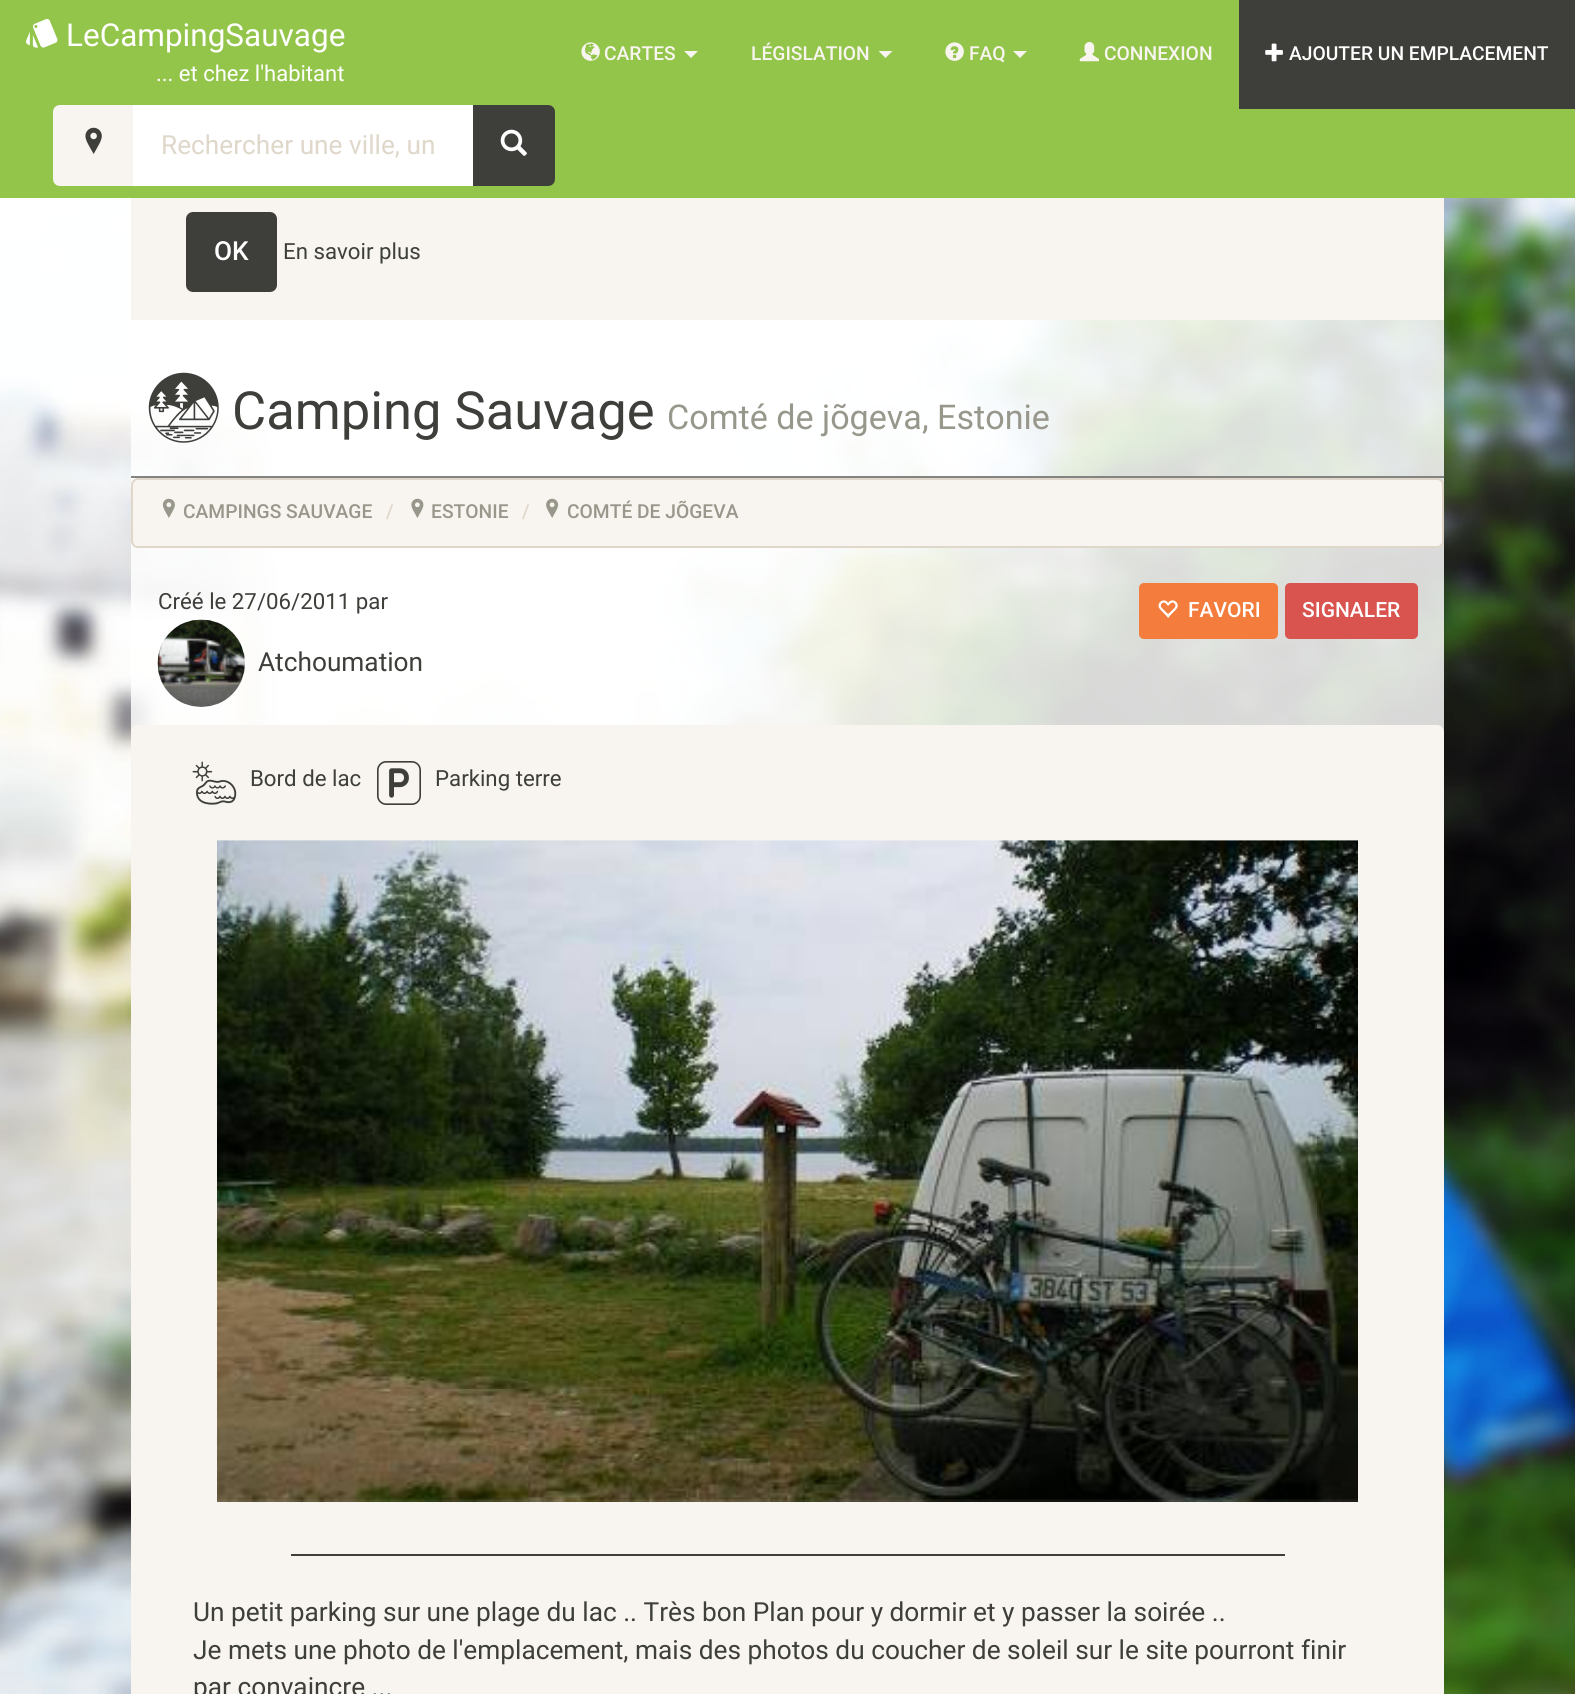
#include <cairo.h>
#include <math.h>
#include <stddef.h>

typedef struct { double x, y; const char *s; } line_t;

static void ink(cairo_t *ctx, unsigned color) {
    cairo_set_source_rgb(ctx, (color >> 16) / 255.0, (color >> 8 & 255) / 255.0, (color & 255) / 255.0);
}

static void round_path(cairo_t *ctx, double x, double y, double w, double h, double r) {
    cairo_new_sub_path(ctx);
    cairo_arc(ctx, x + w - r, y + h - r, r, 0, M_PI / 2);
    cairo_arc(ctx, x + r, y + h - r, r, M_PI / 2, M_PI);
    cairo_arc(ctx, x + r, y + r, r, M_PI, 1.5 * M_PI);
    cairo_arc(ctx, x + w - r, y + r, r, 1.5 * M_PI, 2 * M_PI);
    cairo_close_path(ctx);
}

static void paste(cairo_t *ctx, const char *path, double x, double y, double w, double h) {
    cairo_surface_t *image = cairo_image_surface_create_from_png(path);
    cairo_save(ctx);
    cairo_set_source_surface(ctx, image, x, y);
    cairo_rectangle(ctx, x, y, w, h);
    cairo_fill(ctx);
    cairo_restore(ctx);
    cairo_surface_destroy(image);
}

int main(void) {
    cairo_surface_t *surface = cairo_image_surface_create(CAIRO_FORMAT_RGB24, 1575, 1694);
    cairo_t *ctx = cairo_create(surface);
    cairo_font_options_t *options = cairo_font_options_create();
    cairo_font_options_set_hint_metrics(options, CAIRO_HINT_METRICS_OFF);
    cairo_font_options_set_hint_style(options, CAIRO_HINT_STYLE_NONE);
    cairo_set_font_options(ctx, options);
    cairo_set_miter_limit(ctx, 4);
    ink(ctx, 0xFFFFFF);
    cairo_paint(ctx);
    ink(ctx, 0x93C54B);
    cairo_rectangle(ctx, 0, 0, 1575, 198);
    cairo_fill(ctx);
    cairo_select_font_face(ctx, "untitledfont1", CAIRO_FONT_SLANT_NORMAL, CAIRO_FONT_WEIGHT_NORMAL);
    cairo_set_font_size(ctx, 31.5);
    ink(ctx, 0xFFFFFF);
    cairo_move_to(ctx, 26, 49);
    cairo_show_text(ctx, ">");
    cairo_select_font_face(ctx, "Roboto", CAIRO_FONT_SLANT_NORMAL, CAIRO_FONT_WEIGHT_NORMAL);
    cairo_move_to(ctx, 66, 46);
    cairo_show_text(ctx, "LeCampingSauvage");
    cairo_set_font_size(ctx, 22);
    cairo_move_to(ctx, 156, 81);
    cairo_show_text(ctx, "... et chez l'habitant");
    paste(ctx, "media/1.png", 581, 42, 19, 19);
    cairo_select_font_face(ctx, "Roboto Medium", CAIRO_FONT_SLANT_NORMAL, CAIRO_FONT_WEIGHT_NORMAL);
    cairo_set_font_size(ctx, 19.25);
    ink(ctx, 0xF8F5F0);
    cairo_move_to(ctx, 604, 60);
    cairo_show_text(ctx, "CARTES");
    cairo_new_path(ctx);
    cairo_move_to(ctx, 684, 51);
    cairo_line_to(ctx, 698, 51);
    cairo_line_to(ctx, 691, 58);
    cairo_close_path(ctx);
    cairo_fill(ctx);
    cairo_move_to(ctx, 751, 60);
    cairo_show_text(ctx, "LÉGISLATION");
    cairo_new_path(ctx);
    cairo_move_to(ctx, 878.5, 51);
    cairo_line_to(ctx, 892.5, 51);
    cairo_line_to(ctx, 885.5, 58);
    cairo_close_path(ctx);
    cairo_fill(ctx);
    paste(ctx, "media/2.png", 945, 42, 19, 19);
    cairo_move_to(ctx, 969, 60);
    cairo_show_text(ctx, "FAQ");
    cairo_new_path(ctx);
    cairo_move_to(ctx, 1013, 51);
    cairo_line_to(ctx, 1027, 51);
    cairo_line_to(ctx, 1020, 58);
    cairo_close_path(ctx);
    cairo_fill(ctx);
    paste(ctx, "media/3.png", 1079, 42, 20, 20);
    cairo_move_to(ctx, 1104, 60);
    cairo_show_text(ctx, "CONNEXION");
    ink(ctx, 0x3E3F3A);
    cairo_rectangle(ctx, 1239, 0, 336, 109);
    cairo_fill(ctx);
    paste(ctx, "media/4.png", 1265, 43, 18, 19);
    ink(ctx, 0xFFFFFF);
    cairo_move_to(ctx, 1289, 60);
    cairo_show_text(ctx, "AJOUTER UN EMPLACEMENT");
    ink(ctx, 0xF8F5F0);
    cairo_new_path(ctx);
    cairo_move_to(ctx, 60, 105);
    cairo_line_to(ctx, 135, 105);
    cairo_line_to(ctx, 135, 186);
    cairo_line_to(ctx, 60, 186);
    cairo_curve_to(ctx, 56, 186, 53, 183, 53, 179);
    cairo_line_to(ctx, 53, 112);
    cairo_curve_to(ctx, 53, 108, 56, 105, 60, 105);
    cairo_close_path(ctx);
    cairo_fill(ctx);
    paste(ctx, "media/5.png", 85, 127, 17, 27);
    ink(ctx, 0xFFFFFF);
    cairo_rectangle(ctx, 133, 105, 340, 81);
    cairo_fill(ctx);
    cairo_select_font_face(ctx, "Roboto", CAIRO_FONT_SLANT_NORMAL, CAIRO_FONT_WEIGHT_NORMAL);
    cairo_set_font_size(ctx, 26.25);
    ink(ctx, 0xDFD7CA);
    cairo_move_to(ctx, 161, 154);
    cairo_show_text(ctx, "Rechercher une ville, un");
    ink(ctx, 0x3E3F3A);
    cairo_new_path(ctx);
    cairo_move_to(ctx, 473, 105);
    cairo_line_to(ctx, 548, 105);
    cairo_curve_to(ctx, 552, 105, 555, 108, 555, 112);
    cairo_line_to(ctx, 555, 179);
    cairo_curve_to(ctx, 555, 183, 552, 186, 548, 186);
    cairo_line_to(ctx, 473, 186);
    cairo_close_path(ctx);
    cairo_fill(ctx);
    paste(ctx, "media/6.png", 500, 129, 27, 27);
    paste(ctx, "media/7.png", 0, 198, 1575, 1496);
    ink(ctx, 0xF8F5F0);
    cairo_rectangle(ctx, 131, 198, 1313, 122);
    cairo_fill(ctx);
    ink(ctx, 0x3E3F3A);
    round_path(ctx, 186, 212, 91, 80, 7);
    cairo_fill(ctx);
    cairo_select_font_face(ctx, "Roboto Medium", CAIRO_FONT_SLANT_NORMAL, CAIRO_FONT_WEIGHT_NORMAL);
    ink(ctx, 0xFFFFFF);
    cairo_move_to(ctx, 214, 260);
    cairo_show_text(ctx, "OK");
    cairo_select_font_face(ctx, "Roboto", CAIRO_FONT_SLANT_NORMAL, CAIRO_FONT_WEIGHT_NORMAL);
    cairo_set_font_size(ctx, 22.25);
    ink(ctx, 0x3E3F3A);
    cairo_move_to(ctx, 283, 259);
    cairo_show_text(ctx, "En savoir plus");
    cairo_set_source_rgba(ctx, 1, 1, 1, 0.83);
    cairo_rectangle(ctx, 131, 320, 1313, 412);
    cairo_fill(ctx);
    ink(ctx, 0x838382);
    cairo_rectangle(ctx, 131, 476, 1313, 2);
    cairo_fill(ctx);
    paste(ctx, "media/8.png", 148, 372, 71, 71);
    cairo_set_font_size(ctx, 52.5);
    ink(ctx, 0x3E3F3A);
    cairo_move_to(ctx, 232, 429);
    cairo_show_text(ctx, "Camping Sauvage");
    cairo_set_font_size(ctx, 34.1);
    ink(ctx, 0x98978B);
    cairo_move_to(ctx, 667, 429);
    cairo_show_text(ctx, "Comté de jõgeva, Estonie");
    ink(ctx, 0xF8F5F0);
    round_path(ctx, 132, 479, 1311, 68, 6);
    cairo_fill_preserve(ctx);
    ink(ctx, 0xDFD7CA);
    cairo_stroke(ctx);
    paste(ctx, "media/9.png", 162, 498, 13, 20);
    cairo_select_font_face(ctx, "Roboto Medium", CAIRO_FONT_SLANT_NORMAL, CAIRO_FONT_WEIGHT_NORMAL);
    cairo_set_font_size(ctx, 19.25);
    ink(ctx, 0x98978B);
    cairo_move_to(ctx, 183, 518);
    cairo_show_text(ctx, "CAMPINGS SAUVAGE");
    ink(ctx, 0xDFD7CA);
    cairo_move_to(ctx, 386, 518);
    cairo_show_text(ctx, "/");
    paste(ctx, "media/10.png", 411, 498, 13, 20);
    ink(ctx, 0x98978B);
    cairo_move_to(ctx, 431, 518);
    cairo_show_text(ctx, "ESTONIE");
    ink(ctx, 0xDFD7CA);
    cairo_move_to(ctx, 522, 518);
    cairo_show_text(ctx, "/");
    paste(ctx, "media/11.png", 546, 498, 13, 20);
    ink(ctx, 0x98978B);
    cairo_move_to(ctx, 567, 518);
    cairo_show_text(ctx, "COMTÉ DE JÕGEVA");
    cairo_select_font_face(ctx, "Roboto", CAIRO_FONT_SLANT_NORMAL, CAIRO_FONT_WEIGHT_NORMAL);
    cairo_set_font_size(ctx, 22.25);
    ink(ctx, 0x3E3F3A);
    cairo_move_to(ctx, 158, 609);
    cairo_show_text(ctx, "Créé le 27/06/2011 par");
    paste(ctx, "media/12.png", 157, 619, 88, 88);
    cairo_set_font_size(ctx, 26.25);
    cairo_move_to(ctx, 258, 671);
    cairo_show_text(ctx, "Atchoumation");
    ink(ctx, 0xF47C3C);
    round_path(ctx, 1139, 583, 139, 56, 5);
    cairo_fill(ctx);
    paste(ctx, "media/13.png", 1158, 600, 20, 18);
    cairo_select_font_face(ctx, "Roboto Medium", CAIRO_FONT_SLANT_NORMAL, CAIRO_FONT_WEIGHT_NORMAL);
    cairo_set_font_size(ctx, 21);
    ink(ctx, 0xFFFFFF);
    cairo_move_to(ctx, 1188, 617);
    cairo_show_text(ctx, "FAVORI");
    ink(ctx, 0xD9534F);
    round_path(ctx, 1285, 583, 133, 56, 5);
    cairo_fill(ctx);
    ink(ctx, 0xFFFFFF);
    cairo_move_to(ctx, 1302, 617);
    cairo_show_text(ctx, "SIGNALER");
    ink(ctx, 0xF8F5F0);
    round_path(ctx, 131, 725, 1313, 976, 7);
    cairo_fill(ctx);
    paste(ctx, "media/14.png", 192, 761, 45, 44);
    cairo_select_font_face(ctx, "Roboto", CAIRO_FONT_SLANT_NORMAL, CAIRO_FONT_WEIGHT_NORMAL);
    cairo_set_font_size(ctx, 22.25);
    ink(ctx, 0x3E3F3A);
    cairo_move_to(ctx, 250, 786);
    cairo_show_text(ctx, "Bord de lac");
    cairo_select_font_face(ctx, "untitledfont1", CAIRO_FONT_SLANT_NORMAL, CAIRO_FONT_WEIGHT_NORMAL);
    cairo_set_font_size(ctx, 44);
    cairo_move_to(ctx, 377, 805);
    cairo_show_text(ctx, "`");
    cairo_select_font_face(ctx, "Roboto", CAIRO_FONT_SLANT_NORMAL, CAIRO_FONT_WEIGHT_NORMAL);
    cairo_set_font_size(ctx, 22.25);
    cairo_move_to(ctx, 435, 786);
    cairo_show_text(ctx, "Parking terre");
    paste(ctx, "media/15.png", 217, 840, 1141, 662);
    cairo_rectangle(ctx, 291, 1554, 994, 2);
    cairo_fill(ctx);
    cairo_set_font_size(ctx, 26.25);
    {
        static const line_t items[] = {
            {193, 1621, "Un petit parking sur une plage du lac .. Très bon Plan pour y dormir et y passer la soirée .."},
            {193, 1659, "Je mets une photo de l'emplacement, mais des photos du coucher de soleil sur le site pourront finir"},
            {193, 1696, "par convaincre ..."},
        };
        for (size_t i = 0; i < sizeof items / sizeof *items; i++) {
            cairo_move_to(ctx, items[i].x, items[i].y);
            cairo_show_text(ctx, items[i].s);
        }
    }
    cairo_surface_write_to_png(surface, "image.png");
    cairo_font_options_destroy(options);
    cairo_destroy(ctx);
    cairo_surface_destroy(surface);
    return 0;
}
